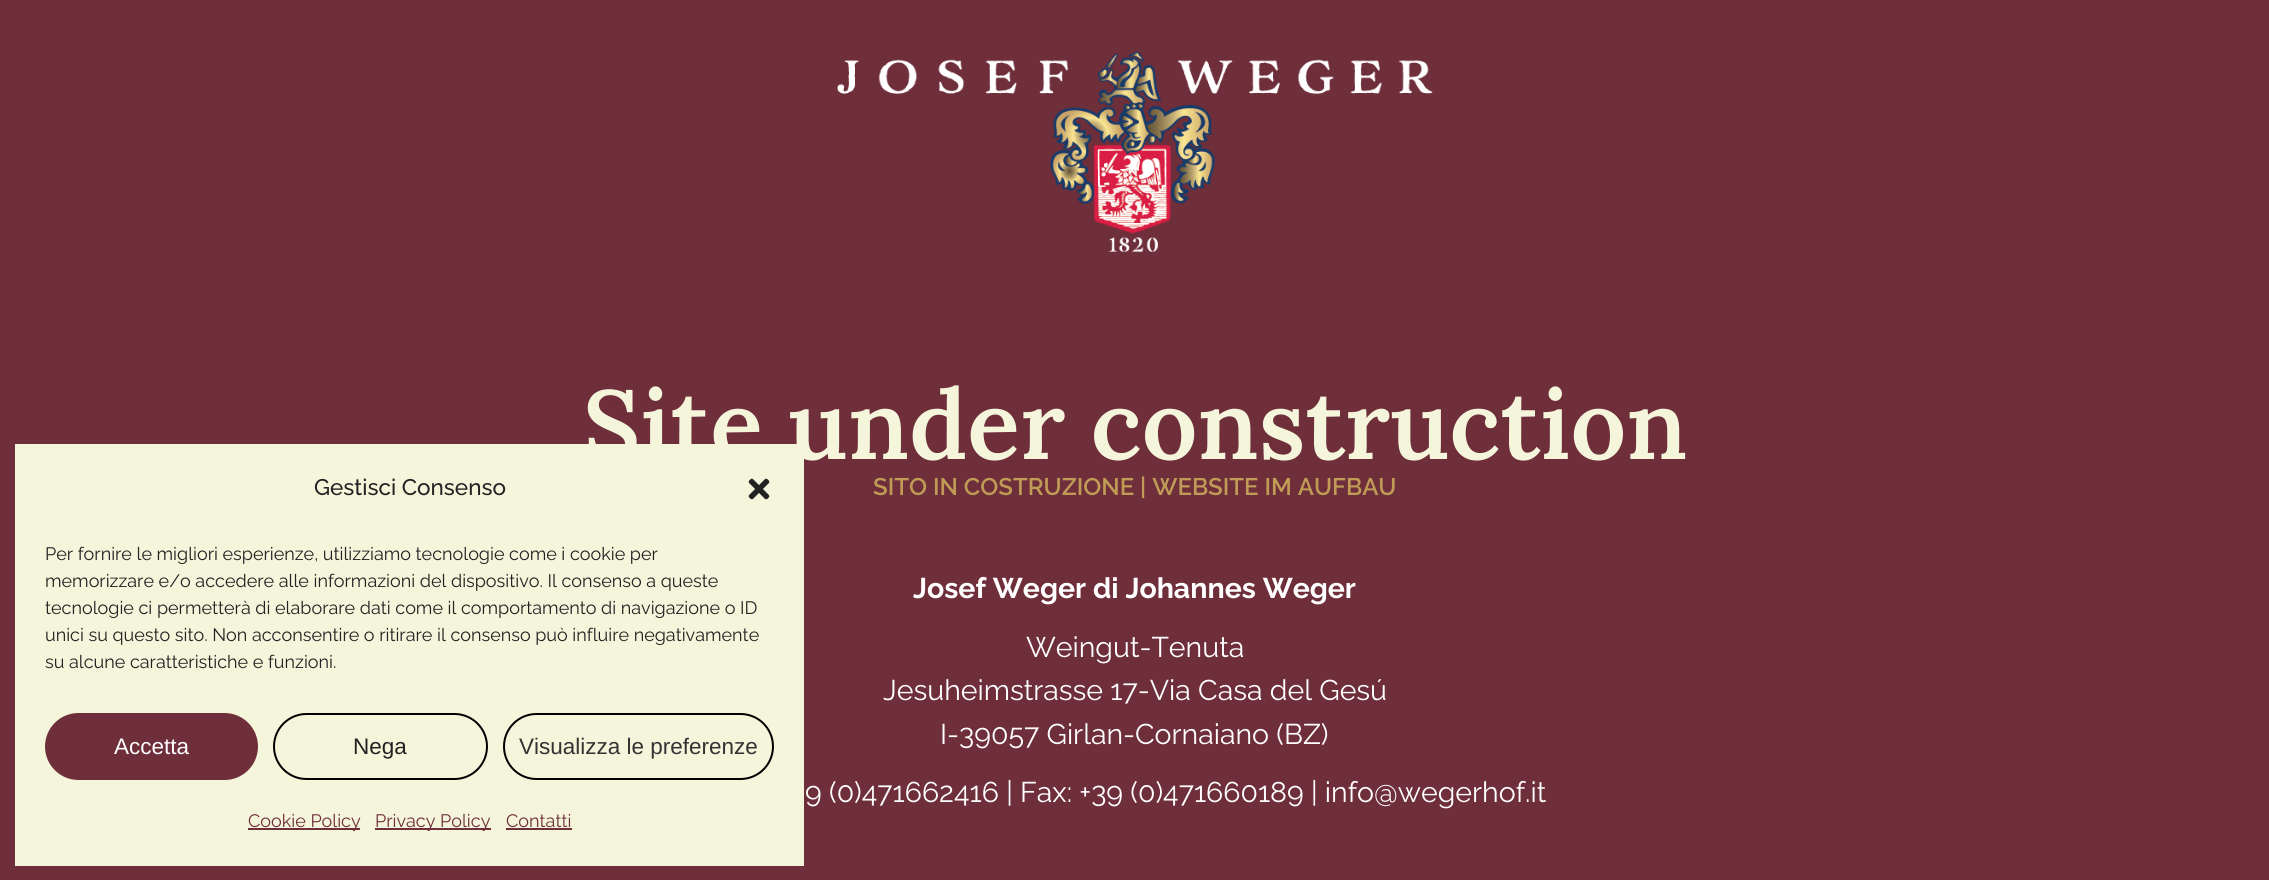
#include <cairo.h>
#include <math.h>
#include <stddef.h>

typedef struct { double x, y; const char *s; } line_t;

static void ink(cairo_t *ctx, unsigned color) {
    cairo_set_source_rgb(ctx, (color >> 16) / 255.0, (color >> 8 & 255) / 255.0, (color & 255) / 255.0);
}

static void round_path(cairo_t *ctx, double x, double y, double w, double h, double r) {
    cairo_new_sub_path(ctx);
    cairo_arc(ctx, x + w - r, y + h - r, r, 0, M_PI / 2);
    cairo_arc(ctx, x + r, y + h - r, r, M_PI / 2, M_PI);
    cairo_arc(ctx, x + r, y + r, r, M_PI, 1.5 * M_PI);
    cairo_arc(ctx, x + w - r, y + r, r, 1.5 * M_PI, 2 * M_PI);
    cairo_close_path(ctx);
}

static void paste(cairo_t *ctx, const char *path, double x, double y, double w, double h) {
    cairo_surface_t *image = cairo_image_surface_create_from_png(path);
    cairo_save(ctx);
    cairo_set_source_surface(ctx, image, x, y);
    cairo_rectangle(ctx, x, y, w, h);
    cairo_fill(ctx);
    cairo_restore(ctx);
    cairo_surface_destroy(image);
}

int main(void) {
    cairo_surface_t *surface = cairo_image_surface_create(CAIRO_FORMAT_RGB24, 2269, 880);
    cairo_t *ctx = cairo_create(surface);
    cairo_font_options_t *options = cairo_font_options_create();
    cairo_font_options_set_hint_metrics(options, CAIRO_HINT_METRICS_OFF);
    cairo_font_options_set_hint_style(options, CAIRO_HINT_STYLE_NONE);
    cairo_set_font_options(ctx, options);
    cairo_set_miter_limit(ctx, 4);
    ink(ctx, 0x6E2E3A);
    cairo_paint(ctx);
    ink(ctx, 0xF5F5DC);
    cairo_rectangle(ctx, 15, 444, 789, 422);
    cairo_fill(ctx);
    cairo_select_font_face(ctx, "Raleway Medium", CAIRO_FONT_SLANT_NORMAL, CAIRO_FONT_WEIGHT_NORMAL);
    cairo_set_font_size(ctx, 22.5);
    ink(ctx, 0x222222);
    cairo_move_to(ctx, 314, 495);
    cairo_show_text(ctx, "Gestisci Consenso");
    paste(ctx, "media/1.png", 748, 478, 22, 22);
    cairo_select_font_face(ctx, "Raleway", CAIRO_FONT_SLANT_NORMAL, CAIRO_FONT_WEIGHT_NORMAL);
    cairo_set_font_size(ctx, 18);
    {
        static const line_t items[] = {
            {45, 560, "Per fornire le migliori esperienze, utilizziamo tecnologie come i cookie per"},
            {45, 587, "memorizzare e/o accedere alle informazioni del dispositivo. Il consenso a queste"},
            {45, 614, "tecnologie ci permetterà di elaborare dati come il comportamento di navigazione o ID"},
            {45, 641, "unici su questo sito. Non acconsentire o ritirare il consenso può influire negativamente"},
            {45, 668, "su alcune caratteristiche e funzioni."},
        };
        for (size_t i = 0; i < sizeof items / sizeof *items; i++) {
            cairo_move_to(ctx, items[i].x, items[i].y);
            cairo_show_text(ctx, items[i].s);
        }
    }
    ink(ctx, 0x6E2E3A);
    round_path(ctx, 46, 714, 211, 65, 32.5);
    cairo_fill_preserve(ctx);
    cairo_stroke(ctx);
    cairo_select_font_face(ctx, "Liberation Sans", CAIRO_FONT_SLANT_NORMAL, CAIRO_FONT_WEIGHT_NORMAL);
    cairo_set_font_size(ctx, 22.5);
    ink(ctx, 0xFFFFFF);
    cairo_move_to(ctx, 114, 754);
    cairo_show_text(ctx, "Accetta");
    round_path(ctx, 274, 714, 213, 65, 32.5);
    ink(ctx, 0x000000);
    cairo_stroke(ctx);
    ink(ctx, 0x222222);
    cairo_move_to(ctx, 353, 754);
    cairo_show_text(ctx, "Nega");
    round_path(ctx, 504, 714, 269, 65, 32.5);
    ink(ctx, 0x000000);
    cairo_stroke(ctx);
    ink(ctx, 0x333333);
    cairo_move_to(ctx, 519, 754);
    cairo_show_text(ctx, "Visualizza le preferenze");
    ink(ctx, 0x6E2E3A);
    cairo_rectangle(ctx, 248, 828, 112, 2);
    cairo_fill(ctx);
    cairo_select_font_face(ctx, "Raleway", CAIRO_FONT_SLANT_NORMAL, CAIRO_FONT_WEIGHT_NORMAL);
    cairo_set_font_size(ctx, 18);
    cairo_move_to(ctx, 248, 827);
    cairo_show_text(ctx, "Cookie Policy");
    cairo_rectangle(ctx, 375, 828, 116, 2);
    cairo_fill(ctx);
    cairo_move_to(ctx, 375, 827);
    cairo_show_text(ctx, "Privacy Policy");
    cairo_move_to(ctx, 506, 827);
    cairo_show_text(ctx, "Contatti");
    cairo_rectangle(ctx, 506, 828, 66, 2);
    cairo_fill(ctx);
    paste(ctx, "media/2.png", 837, 51, 596, 201);
    cairo_select_font_face(ctx, "Lora SemiBold", CAIRO_FONT_SLANT_NORMAL, CAIRO_FONT_WEIGHT_NORMAL);
    cairo_set_font_size(ctx, 97.5);
    ink(ctx, 0xF5F5DC);
    cairo_move_to(ctx, 583, 459);
    cairo_show_text(ctx, "Site under construction");
    cairo_select_font_face(ctx, "Raleway SemiBold", CAIRO_FONT_SLANT_NORMAL, CAIRO_FONT_WEIGHT_NORMAL);
    cairo_set_font_size(ctx, 24);
    ink(ctx, 0xBF9B55);
    cairo_move_to(ctx, 873, 495);
    cairo_show_text(ctx, "SITO IN COSTRUZIONE | WEBSITE IM AUFBAU");
    cairo_select_font_face(ctx, "Raleway", CAIRO_FONT_SLANT_NORMAL, CAIRO_FONT_WEIGHT_BOLD);
    cairo_set_font_size(ctx, 28.5);
    ink(ctx, 0xFFFFFF);
    cairo_move_to(ctx, 913, 598);
    cairo_show_text(ctx, "Josef Weger di Johannes Weger");
    cairo_select_font_face(ctx, "Raleway", CAIRO_FONT_SLANT_NORMAL, CAIRO_FONT_WEIGHT_NORMAL);
    {
        static const line_t items[] = {
            {1026, 657, "Weingut-Tenuta"},
            {883, 700, "Jesuheimstrasse 17-Via Casa del Gesú"},
            {940, 744, "I-39057 Girlan-Cornaiano (BZ)"},
            {805, 802, "9 (0)471662416 | Fax: +39 (0)471660189 | info@wegerhof.it"},
        };
        for (size_t i = 0; i < sizeof items / sizeof *items; i++) {
            cairo_move_to(ctx, items[i].x, items[i].y);
            cairo_show_text(ctx, items[i].s);
        }
    }
    cairo_surface_write_to_png(surface, "image.png");
    cairo_font_options_destroy(options);
    cairo_destroy(ctx);
    cairo_surface_destroy(surface);
    return 0;
}
